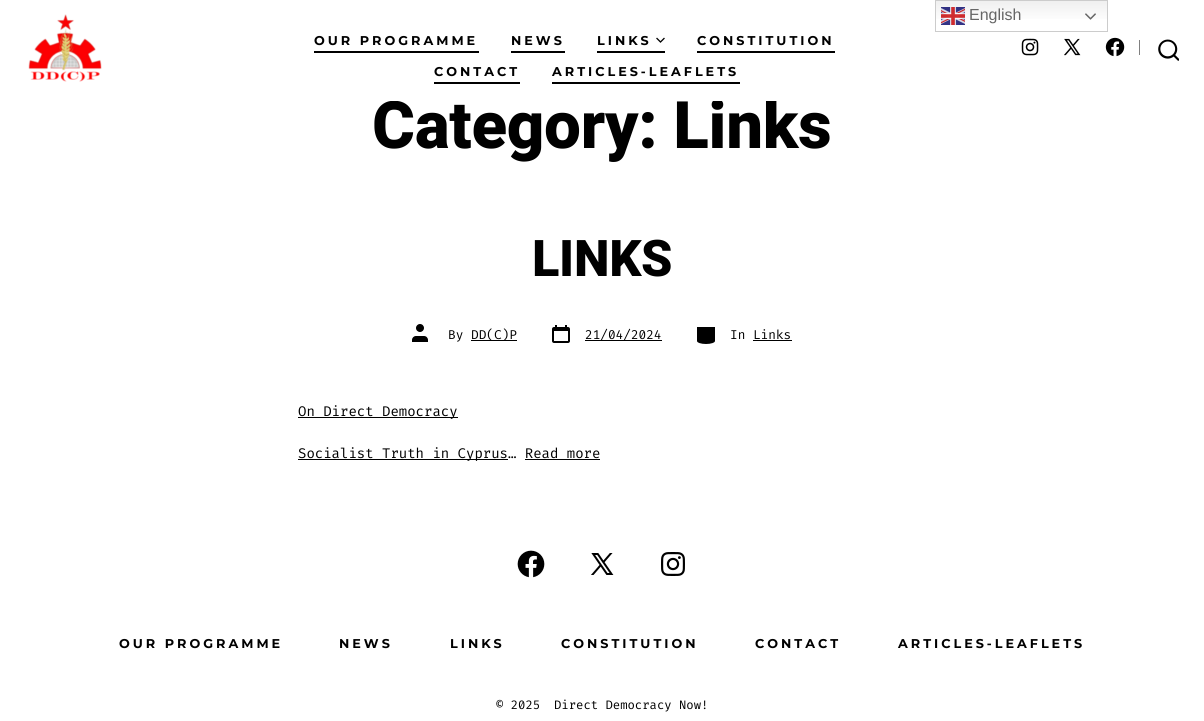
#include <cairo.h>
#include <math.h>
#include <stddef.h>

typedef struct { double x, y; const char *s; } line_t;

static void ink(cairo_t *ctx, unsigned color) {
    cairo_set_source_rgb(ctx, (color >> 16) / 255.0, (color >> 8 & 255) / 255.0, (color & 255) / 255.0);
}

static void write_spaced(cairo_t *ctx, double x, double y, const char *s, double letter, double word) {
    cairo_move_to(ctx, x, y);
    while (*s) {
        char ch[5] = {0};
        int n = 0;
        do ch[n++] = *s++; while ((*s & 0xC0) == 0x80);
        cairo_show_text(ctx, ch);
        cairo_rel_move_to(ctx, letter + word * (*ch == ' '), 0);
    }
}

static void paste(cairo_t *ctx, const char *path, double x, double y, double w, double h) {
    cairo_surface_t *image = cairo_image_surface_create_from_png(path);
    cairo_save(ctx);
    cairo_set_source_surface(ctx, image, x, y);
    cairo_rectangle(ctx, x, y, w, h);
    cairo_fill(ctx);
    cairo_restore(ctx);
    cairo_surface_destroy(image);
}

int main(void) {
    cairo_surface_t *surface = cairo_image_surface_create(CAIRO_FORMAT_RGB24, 1204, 721);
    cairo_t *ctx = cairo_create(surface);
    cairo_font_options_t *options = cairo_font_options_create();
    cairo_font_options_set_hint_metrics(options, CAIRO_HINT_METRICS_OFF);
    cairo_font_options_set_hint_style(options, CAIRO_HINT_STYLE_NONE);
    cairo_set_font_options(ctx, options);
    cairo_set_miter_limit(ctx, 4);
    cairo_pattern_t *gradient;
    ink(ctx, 0xFFFFFF);
    cairo_paint(ctx);
    gradient = cairo_pattern_create_linear(1022, 0, 1022, 32);
    cairo_pattern_add_color_stop_rgba(gradient, 0, 0.937, 0.937, 0.937, 1);
    cairo_pattern_add_color_stop_rgba(gradient, 0.7, 1, 1, 1, 1);
    cairo_set_source(ctx, gradient);
    cairo_pattern_destroy(gradient);
    cairo_rectangle(ctx, 936, 1, 171, 18);
    cairo_fill(ctx);
    cairo_rectangle(ctx, 935.5, 0.5, 172, 31);
    ink(ctx, 0xCCCCCC);
    cairo_set_line_width(ctx, 1);
    cairo_stroke(ctx);
    paste(ctx, "media/1.png", 941, 7, 24, 18);
    cairo_select_font_face(ctx, "Liberation Sans", CAIRO_FONT_SLANT_NORMAL, CAIRO_FONT_WEIGHT_NORMAL);
    cairo_set_font_size(ctx, 16);
    ink(ctx, 0x666666);
    cairo_move_to(ctx, 969, 20);
    cairo_show_text(ctx, "English");
    paste(ctx, "media/2.png", 1085, 13, 11, 7);
    cairo_select_font_face(ctx, "Heebo ExtraBold", CAIRO_FONT_SLANT_NORMAL, CAIRO_FONT_WEIGHT_NORMAL);
    cairo_set_font_size(ctx, 65.5);
    ink(ctx, 0x000000);
    write_spaced(ctx, 372, 148, "Category: Links", -0.3, 0);
    ink(ctx, 0xFFFFFF);
    cairo_rectangle(ctx, 390, 98, 387, 3);
    cairo_fill(ctx);
    paste(ctx, "media/3.png", 28, 14, 74, 68);
    cairo_select_font_face(ctx, "Montserrat", CAIRO_FONT_SLANT_NORMAL, CAIRO_FONT_WEIGHT_BOLD);
    cairo_set_font_size(ctx, 12.75);
    ink(ctx, 0x000000);
    write_spaced(ctx, 314, 45, "OUR PROGRAMME", 3, 0);
    cairo_rectangle(ctx, 314, 51, 165, 2);
    cairo_fill(ctx);
    write_spaced(ctx, 511, 45, "NEWS", 3, 0);
    cairo_rectangle(ctx, 511, 51, 54, 2);
    cairo_fill(ctx);
    write_spaced(ctx, 597, 45, "LINKS", 3, 0);
    cairo_new_path(ctx);
    cairo_move_to(ctx, 657, 38.5);
    cairo_line_to(ctx, 660.5, 42);
    cairo_line_to(ctx, 664, 38.5);
    cairo_set_line_width(ctx, 1.3);
    cairo_set_line_cap(ctx, CAIRO_LINE_CAP_SQUARE);
    cairo_stroke(ctx);
    cairo_rectangle(ctx, 597, 51, 68, 2);
    cairo_fill(ctx);
    write_spaced(ctx, 697, 45, "CONSTITUTION", 3, 0);
    cairo_rectangle(ctx, 697, 51, 138, 2);
    cairo_fill(ctx);
    write_spaced(ctx, 434, 76, "CONTACT", 3, 0);
    cairo_rectangle(ctx, 434, 82, 86, 2);
    cairo_fill(ctx);
    write_spaced(ctx, 552, 76, "ARTICLES-LEAFLETS", 3, 0);
    cairo_rectangle(ctx, 552, 82, 188, 2);
    cairo_fill(ctx);
    paste(ctx, "media/4.png", 1021, 38, 18, 18);
    paste(ctx, "media/5.png", 1064, 38, 17, 18);
    paste(ctx, "media/6.png", 1105, 37, 20, 20);
    ink(ctx, 0x808080);
    cairo_rectangle(ctx, 1139, 40, 1, 15);
    cairo_fill(ctx);
    paste(ctx, "media/7.png", 1158, 39, 21, 22);
    cairo_select_font_face(ctx, "Heebo ExtraBold", CAIRO_FONT_SLANT_NORMAL, CAIRO_FONT_WEIGHT_NORMAL);
    cairo_set_font_size(ctx, 50.5);
    ink(ctx, 0x000000);
    write_spaced(ctx, 532, 276, "LINKS", -0.3, 0);
    paste(ctx, "media/8.png", 412, 324, 16, 18);
    cairo_select_font_face(ctx, "Fira Code", CAIRO_FONT_SLANT_NORMAL, CAIRO_FONT_WEIGHT_NORMAL);
    cairo_set_font_size(ctx, 12.75);
    cairo_move_to(ctx, 448, 339);
    cairo_show_text(ctx, "By");
    cairo_rectangle(ctx, 471, 340, 46, 1);
    cairo_fill(ctx);
    cairo_move_to(ctx, 471, 339);
    cairo_show_text(ctx, "DD(C)P");
    paste(ctx, "media/9.png", 552, 325, 18, 18);
    cairo_rectangle(ctx, 585, 340, 77, 1);
    cairo_fill(ctx);
    cairo_move_to(ctx, 585, 339);
    cairo_show_text(ctx, "21/04/2024");
    paste(ctx, "media/10.png", 697, 327, 18, 17);
    cairo_move_to(ctx, 730, 339);
    cairo_show_text(ctx, "In Links");
    cairo_rectangle(ctx, 753, 340, 39, 1);
    cairo_fill(ctx);
    cairo_rectangle(ctx, 298, 417, 160, 1);
    cairo_fill(ctx);
    cairo_set_font_size(ctx, 14);
    cairo_move_to(ctx, 298, 416);
    cairo_show_text(ctx, "On Direct Democracy");
    cairo_rectangle(ctx, 298, 459, 210, 1);
    cairo_fill(ctx);
    cairo_move_to(ctx, 298, 458);
    cairo_show_text(ctx, "Socialist Truth in Cyprus… Read more");
    cairo_rectangle(ctx, 525, 459, 75, 1);
    cairo_fill(ctx);
    paste(ctx, "media/11.png", 517, 550, 28, 28);
    paste(ctx, "media/12.png", 591, 553, 23, 22);
    paste(ctx, "media/13.png", 661, 552, 24, 24);
    cairo_select_font_face(ctx, "Montserrat", CAIRO_FONT_SLANT_NORMAL, CAIRO_FONT_WEIGHT_BOLD);
    cairo_set_font_size(ctx, 12.75);
    {
        static const line_t items[] = {
            {119, 648, "OUR PROGRAMME"},
            {339, 648, "NEWS"},
            {450, 648, "LINKS"},
            {561, 648, "CONSTITUTION"},
            {755, 648, "CONTACT"},
            {898, 648, "ARTICLES-LEAFLETS"},
        };
        for (size_t i = 0; i < sizeof items / sizeof *items; i++) {
            write_spaced(ctx, items[i].x, items[i].y, items[i].s, 3, 0);
        }
    }
    cairo_select_font_face(ctx, "Fira Code", CAIRO_FONT_SLANT_NORMAL, CAIRO_FONT_WEIGHT_NORMAL);
    cairo_set_font_size(ctx, 12.25);
    cairo_move_to(ctx, 496, 709);
    cairo_show_text(ctx, "© 2025");
    cairo_move_to(ctx, 554, 709);
    cairo_show_text(ctx, "Direct Democracy Now!");
    cairo_surface_write_to_png(surface, "image.png");
    cairo_font_options_destroy(options);
    cairo_destroy(ctx);
    cairo_surface_destroy(surface);
    return 0;
}
